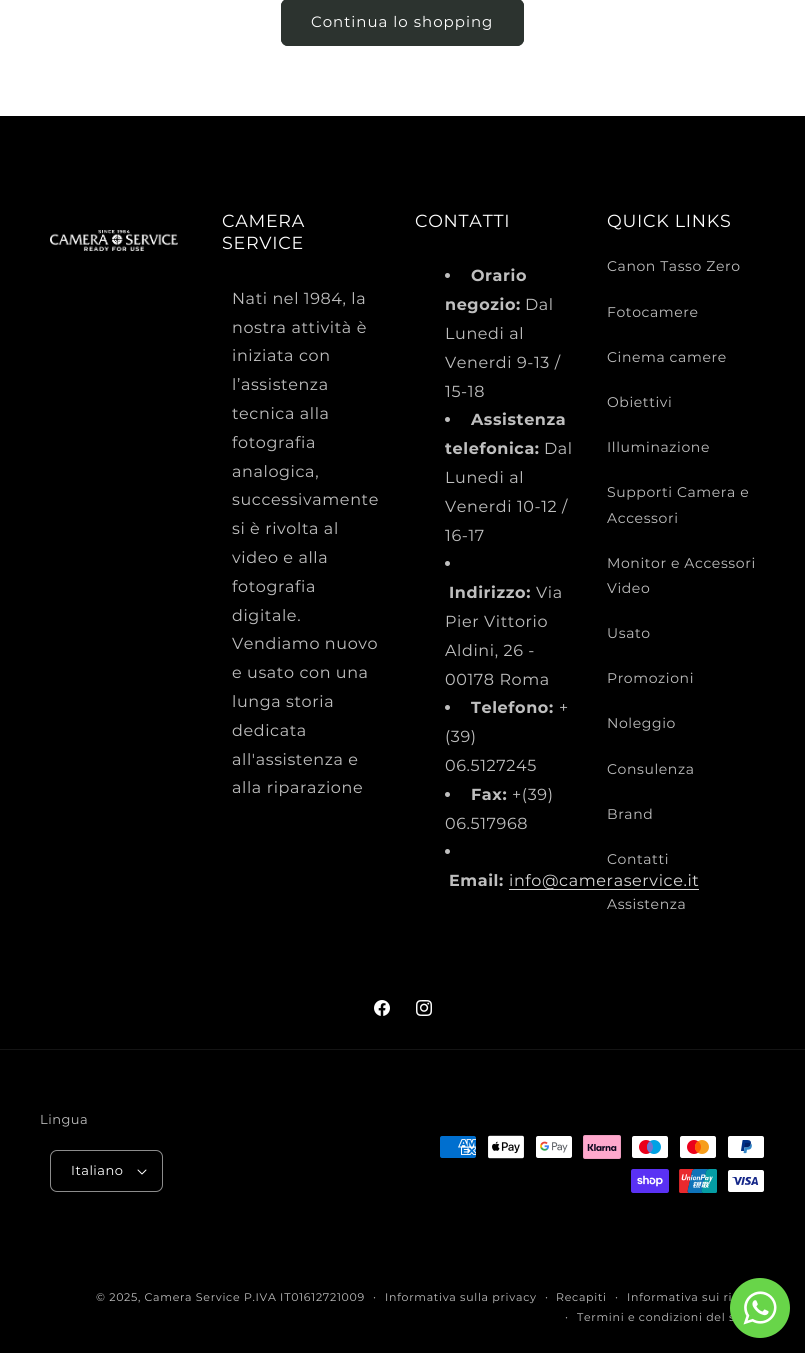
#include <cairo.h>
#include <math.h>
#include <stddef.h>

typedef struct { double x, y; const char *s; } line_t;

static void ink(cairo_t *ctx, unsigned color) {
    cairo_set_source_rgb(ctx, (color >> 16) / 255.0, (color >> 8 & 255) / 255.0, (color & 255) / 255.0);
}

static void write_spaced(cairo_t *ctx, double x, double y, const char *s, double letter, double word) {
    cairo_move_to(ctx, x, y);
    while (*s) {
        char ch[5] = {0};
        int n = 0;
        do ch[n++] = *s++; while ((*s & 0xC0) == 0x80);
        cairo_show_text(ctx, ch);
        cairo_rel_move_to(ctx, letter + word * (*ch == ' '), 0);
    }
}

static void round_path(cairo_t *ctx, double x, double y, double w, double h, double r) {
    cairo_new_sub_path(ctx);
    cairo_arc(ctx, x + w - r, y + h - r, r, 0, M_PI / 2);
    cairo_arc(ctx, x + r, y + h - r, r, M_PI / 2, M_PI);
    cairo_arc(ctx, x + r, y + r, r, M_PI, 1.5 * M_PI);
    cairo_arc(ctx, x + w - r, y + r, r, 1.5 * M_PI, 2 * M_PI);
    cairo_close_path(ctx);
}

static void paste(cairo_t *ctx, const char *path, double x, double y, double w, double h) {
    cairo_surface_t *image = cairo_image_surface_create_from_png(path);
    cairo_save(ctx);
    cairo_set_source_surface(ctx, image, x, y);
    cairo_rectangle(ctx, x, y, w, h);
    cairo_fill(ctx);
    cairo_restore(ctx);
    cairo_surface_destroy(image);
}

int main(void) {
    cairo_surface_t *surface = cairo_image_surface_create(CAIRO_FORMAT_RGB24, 805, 1353);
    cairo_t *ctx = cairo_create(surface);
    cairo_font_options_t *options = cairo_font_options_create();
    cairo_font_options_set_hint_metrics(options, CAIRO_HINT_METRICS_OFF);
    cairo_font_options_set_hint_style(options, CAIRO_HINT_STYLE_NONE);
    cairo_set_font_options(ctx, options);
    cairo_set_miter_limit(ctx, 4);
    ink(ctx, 0xFFFFFF);
    cairo_paint(ctx);
    ink(ctx, 0x2C332F);
    round_path(ctx, 281, -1, 243, 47, 7);
    cairo_fill(ctx);
    round_path(ctx, 281.5, -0.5, 242, 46, 6.5);
    cairo_set_line_width(ctx, 1);
    cairo_stroke(ctx);
    cairo_select_font_face(ctx, "Montserrat", CAIRO_FONT_SLANT_NORMAL, CAIRO_FONT_WEIGHT_NORMAL);
    cairo_set_font_size(ctx, 15);
    ink(ctx, 0xFFFFFF);
    write_spaced(ctx, 311, 27, "Continua lo shopping", 1, 0);
    ink(ctx, 0x000000);
    cairo_rectangle(ctx, 0, 116, 805, 1237);
    cairo_fill(ctx);
    cairo_set_font_size(ctx, 17.5);
    ink(ctx, 0xFFFFFF);
    write_spaced(ctx, 222, 227, "CAMERA", 0.75, 0);
    write_spaced(ctx, 222, 249, "SERVICE", 0.75, 0);
    cairo_set_font_size(ctx, 16);
    ink(ctx, 0xBFBFBF);
    {
        static const line_t items[] = {
            {232, 304, "Nati nel 1984, la"},
            {232, 333, "nostra attività è"},
            {232, 361, "iniziata con"},
            {232, 390, "l’assistenza"},
            {232, 419, "tecnica alla"},
            {232, 448, "fotografia"},
            {232, 477, "analogica,"},
            {232, 505, "successivamente"},
            {232, 534, "si è rivolta al"},
            {232, 563, "video e alla"},
            {232, 592, "fotografia"},
            {232, 621, "digitale."},
            {232, 649, "Vendiamo nuovo"},
            {232, 678, "e usato con una"},
            {232, 707, "lunga storia"},
            {232, 736, "dedicata"},
            {232, 765, "all'assistenza e"},
            {232, 793, "alla riparazione"},
        };
        for (size_t i = 0; i < sizeof items / sizeof *items; i++) {
            write_spaced(ctx, items[i].x, items[i].y, items[i].s, 0.6, 0);
        }
    }
    cairo_set_font_size(ctx, 17.5);
    ink(ctx, 0xFFFFFF);
    write_spaced(ctx, 415, 227, "CONTATTI", 0.75, 0);
    ink(ctx, 0xBFBFBF);
    cairo_new_path(ctx);
    cairo_arc(ctx, 447.5, 275.5, 2.5, 0, 2 * M_PI);
    cairo_fill(ctx);
    cairo_select_font_face(ctx, "Montserrat", CAIRO_FONT_SLANT_NORMAL, CAIRO_FONT_WEIGHT_BOLD);
    cairo_set_font_size(ctx, 16);
    write_spaced(ctx, 471, 281, "Orario", 0.6, 0);
    write_spaced(ctx, 445, 310, "negozio:", 0.6, 0);
    cairo_select_font_face(ctx, "Montserrat", CAIRO_FONT_SLANT_NORMAL, CAIRO_FONT_WEIGHT_NORMAL);
    {
        static const line_t items[] = {
            {525, 310, "Dal"},
            {445, 339, "Lunedi al"},
            {445, 368, "Venerdi 9-13 /"},
            {445, 397, "15-18"},
        };
        for (size_t i = 0; i < sizeof items / sizeof *items; i++) {
            write_spaced(ctx, items[i].x, items[i].y, items[i].s, 0.6, 0);
        }
    }
    cairo_new_path(ctx);
    cairo_arc(ctx, 447.5, 419.5, 2.5, 0, 2 * M_PI);
    cairo_fill(ctx);
    cairo_select_font_face(ctx, "Montserrat", CAIRO_FONT_SLANT_NORMAL, CAIRO_FONT_WEIGHT_BOLD);
    write_spaced(ctx, 471, 425, "Assistenza", 0.6, 0);
    write_spaced(ctx, 445, 454, "telefonica:", 0.6, 0);
    cairo_select_font_face(ctx, "Montserrat", CAIRO_FONT_SLANT_NORMAL, CAIRO_FONT_WEIGHT_NORMAL);
    {
        static const line_t items[] = {
            {544, 454, "Dal"},
            {445, 483, "Lunedi al"},
            {445, 512, "Venerdi 10-12 /"},
            {445, 541, "16-17"},
        };
        for (size_t i = 0; i < sizeof items / sizeof *items; i++) {
            write_spaced(ctx, items[i].x, items[i].y, items[i].s, 0.6, 0);
        }
    }
    cairo_new_path(ctx);
    cairo_arc(ctx, 447.5, 563.5, 2.5, 0, 2 * M_PI);
    cairo_fill(ctx);
    cairo_select_font_face(ctx, "Montserrat", CAIRO_FONT_SLANT_NORMAL, CAIRO_FONT_WEIGHT_BOLD);
    write_spaced(ctx, 449, 598, "Indirizzo:", 0.6, 0);
    cairo_select_font_face(ctx, "Montserrat", CAIRO_FONT_SLANT_NORMAL, CAIRO_FONT_WEIGHT_NORMAL);
    {
        static const line_t items[] = {
            {536, 598, "Via"},
            {445, 627, "Pier Vittorio"},
            {445, 656, "Aldini, 26 -"},
            {445, 685, "00178 Roma"},
        };
        for (size_t i = 0; i < sizeof items / sizeof *items; i++) {
            write_spaced(ctx, items[i].x, items[i].y, items[i].s, 0.6, 0);
        }
    }
    cairo_new_path(ctx);
    cairo_arc(ctx, 447.5, 707.5, 2.5, 0, 2 * M_PI);
    cairo_fill(ctx);
    cairo_select_font_face(ctx, "Montserrat", CAIRO_FONT_SLANT_NORMAL, CAIRO_FONT_WEIGHT_BOLD);
    write_spaced(ctx, 471, 713, "Telefono:", 0.6, 0);
    cairo_select_font_face(ctx, "Montserrat", CAIRO_FONT_SLANT_NORMAL, CAIRO_FONT_WEIGHT_NORMAL);
    {
        static const line_t items[] = {
            {559, 713, "+"},
            {445, 742, "(39)"},
            {445, 771, "06.5127245"},
        };
        for (size_t i = 0; i < sizeof items / sizeof *items; i++) {
            write_spaced(ctx, items[i].x, items[i].y, items[i].s, 0.6, 0);
        }
    }
    cairo_new_path(ctx);
    cairo_arc(ctx, 447.5, 794.5, 2.5, 0, 2 * M_PI);
    cairo_fill(ctx);
    cairo_select_font_face(ctx, "Montserrat", CAIRO_FONT_SLANT_NORMAL, CAIRO_FONT_WEIGHT_BOLD);
    write_spaced(ctx, 471, 800, "Fax:", 0.6, 0);
    cairo_select_font_face(ctx, "Montserrat", CAIRO_FONT_SLANT_NORMAL, CAIRO_FONT_WEIGHT_NORMAL);
    write_spaced(ctx, 512, 800, "+(39)", 0.6, 0);
    write_spaced(ctx, 445, 829, "06.517968", 0.6, 0);
    cairo_new_path(ctx);
    cairo_arc(ctx, 447.5, 851.5, 2.5, 0, 2 * M_PI);
    cairo_fill(ctx);
    cairo_select_font_face(ctx, "Montserrat", CAIRO_FONT_SLANT_NORMAL, CAIRO_FONT_WEIGHT_BOLD);
    write_spaced(ctx, 449, 886, "Email:", 0.6, 0);
    ink(ctx, 0xD9D9D9);
    cairo_rectangle(ctx, 509, 889, 190, 1);
    cairo_fill(ctx);
    cairo_select_font_face(ctx, "Montserrat", CAIRO_FONT_SLANT_NORMAL, CAIRO_FONT_WEIGHT_NORMAL);
    write_spaced(ctx, 509, 886, "info@cameraservice.it", 0.6, 0);
    paste(ctx, "media/1.png", 50, 230, 128, 21);
    cairo_set_font_size(ctx, 17.5);
    ink(ctx, 0xFFFFFF);
    write_spaced(ctx, 607, 227, "QUICK LINKS", 0.75, 0);
    cairo_set_font_size(ctx, 14);
    ink(ctx, 0xBFBFBF);
    {
        static const line_t items[] = {
            {607, 271, "Canon Tasso Zero"},
            {607, 317, "Fotocamere"},
            {607, 362, "Cinema camere"},
            {607, 407, "Obiettivi"},
            {607, 452, "Illuminazione"},
            {607, 497, "Supporti Camera e"},
            {607, 523, "Accessori"},
            {607, 568, "Monitor e Accessori"},
            {607, 593, "Video"},
            {607, 638, "Usato"},
            {607, 683, "Promozioni"},
            {607, 728, "Noleggio"},
            {607, 774, "Consulenza"},
            {607, 819, "Brand"},
            {607, 864, "Contatti"},
            {607, 909, "Assistenza"},
        };
        for (size_t i = 0; i < sizeof items / sizeof *items; i++) {
            write_spaced(ctx, items[i].x, items[i].y, items[i].s, 0.6, 0);
        }
    }
    paste(ctx, "media/2.png", 374, 1000, 16, 16);
    paste(ctx, "media/3.png", 416, 1000, 16, 16);
    ink(ctx, 0x141414);
    cairo_rectangle(ctx, 0, 1049, 805, 1);
    cairo_fill(ctx);
    cairo_set_font_size(ctx, 13);
    ink(ctx, 0xBFBFBF);
    write_spaced(ctx, 40, 1124, "Lingua", 0.5, 0);
    paste(ctx, "media/4.png", 137, 1169, 10, 6);
    round_path(ctx, 50.5, 1150.5, 112, 41, 6.5);
    ink(ctx, 0x8C8C8C);
    cairo_stroke(ctx);
    ink(ctx, 0xFFFFFF);
    write_spaced(ctx, 71, 1175, "Italiano", 0.5, 0);
    paste(ctx, "media/5.png", 440, 1136, 36, 22);
    paste(ctx, "media/6.png", 488, 1135, 36, 24);
    paste(ctx, "media/7.png", 536, 1136, 36, 22);
    paste(ctx, "media/8.png", 583, 1135, 38, 24);
    paste(ctx, "media/9.png", 632, 1136, 36, 22);
    paste(ctx, "media/10.png", 680, 1136, 36, 22);
    paste(ctx, "media/11.png", 728, 1136, 36, 22);
    paste(ctx, "media/12.png", 631, 1169, 38, 24);
    paste(ctx, "media/13.png", 679, 1169, 38, 24);
    paste(ctx, "media/14.png", 728, 1170, 36, 22);
    cairo_set_font_size(ctx, 11);
    ink(ctx, 0xBFBFBF);
    write_spaced(ctx, 96, 1301, "© 2025, Camera Service P.IVA IT01612721009", 0.7, 0);
    cairo_set_font_size(ctx, 12);
    write_spaced(ctx, 373, 1301, "·", 0.7, 0);
    cairo_set_font_size(ctx, 11);
    write_spaced(ctx, 385, 1301, "Informativa sulla privacy", 0.7, 0);
    cairo_set_font_size(ctx, 12);
    write_spaced(ctx, 545, 1301, "·", 0.7, 0);
    cairo_set_font_size(ctx, 11);
    write_spaced(ctx, 556, 1301, "Recapiti", 0.7, 0);
    cairo_set_font_size(ctx, 12);
    write_spaced(ctx, 615, 1301, "·", 0.7, 0);
    cairo_set_font_size(ctx, 11);
    write_spaced(ctx, 627, 1301, "Informativa sui ri", 0.7, 0);
    cairo_set_font_size(ctx, 12);
    write_spaced(ctx, 565, 1321, "·", 0.7, 0);
    cairo_set_font_size(ctx, 11);
    write_spaced(ctx, 577, 1321, "Termini e condizioni del s", 0.7, 0);
    paste(ctx, "media/15.png", 730, 1278, 60, 60);
    cairo_surface_write_to_png(surface, "image.png");
    cairo_font_options_destroy(options);
    cairo_destroy(ctx);
    cairo_surface_destroy(surface);
    return 0;
}
